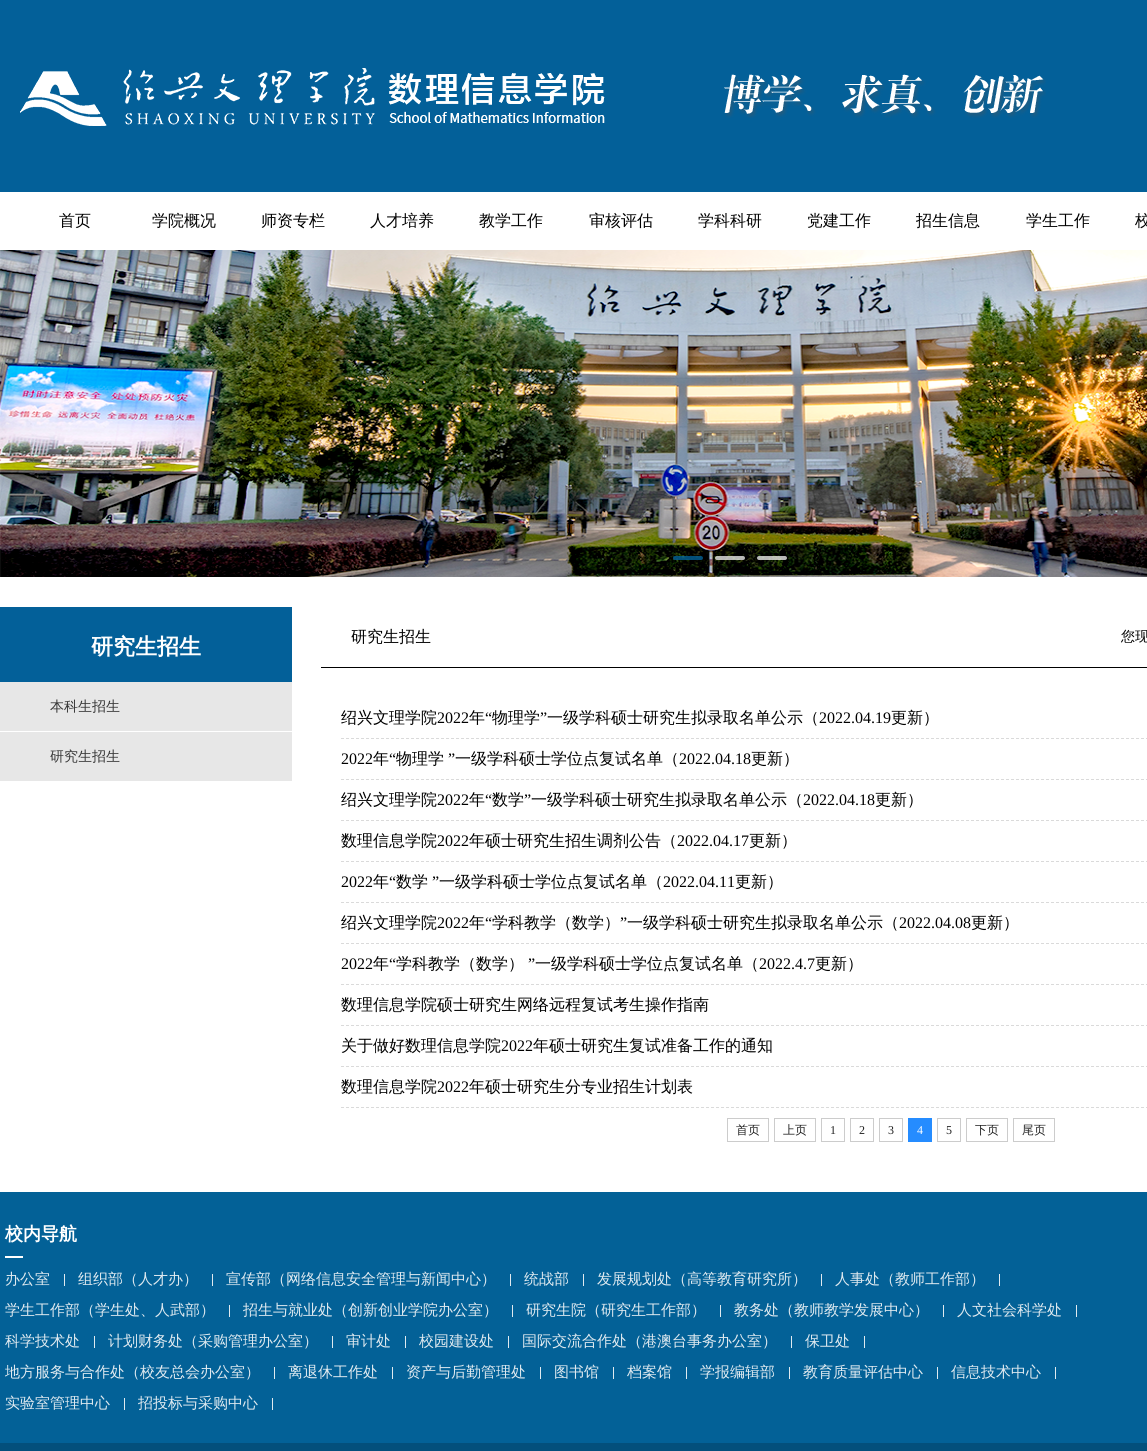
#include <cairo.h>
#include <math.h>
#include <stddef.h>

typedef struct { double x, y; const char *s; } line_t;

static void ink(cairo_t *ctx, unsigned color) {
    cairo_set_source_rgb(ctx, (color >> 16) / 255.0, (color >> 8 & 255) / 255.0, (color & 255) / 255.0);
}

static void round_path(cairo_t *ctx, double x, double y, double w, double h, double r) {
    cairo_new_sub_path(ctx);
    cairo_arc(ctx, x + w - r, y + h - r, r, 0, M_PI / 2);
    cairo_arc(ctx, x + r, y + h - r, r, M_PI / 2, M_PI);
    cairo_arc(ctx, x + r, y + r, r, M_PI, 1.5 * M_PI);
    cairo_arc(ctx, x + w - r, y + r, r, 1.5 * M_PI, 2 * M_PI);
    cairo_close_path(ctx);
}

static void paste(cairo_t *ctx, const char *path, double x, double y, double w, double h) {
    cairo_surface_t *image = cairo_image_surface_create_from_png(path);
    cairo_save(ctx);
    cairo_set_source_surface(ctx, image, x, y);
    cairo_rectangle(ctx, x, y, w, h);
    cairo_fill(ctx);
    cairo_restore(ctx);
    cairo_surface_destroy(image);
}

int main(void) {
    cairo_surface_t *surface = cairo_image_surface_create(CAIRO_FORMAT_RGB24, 1147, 1451);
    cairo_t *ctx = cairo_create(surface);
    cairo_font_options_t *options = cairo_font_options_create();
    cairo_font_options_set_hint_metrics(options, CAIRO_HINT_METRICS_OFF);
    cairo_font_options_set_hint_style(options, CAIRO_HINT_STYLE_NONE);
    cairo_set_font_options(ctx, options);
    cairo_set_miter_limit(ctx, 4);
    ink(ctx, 0xFFFFFF);
    cairo_paint(ctx);
    ink(ctx, 0x036099);
    cairo_rectangle(ctx, 0, 0, 1147, 192);
    cairo_fill(ctx);
    paste(ctx, "media/1.png", 20, 68, 585, 58);
    paste(ctx, "media/2.png", 724, 74, 322, 44);
    cairo_select_font_face(ctx, "WenQuanYi Zen Hei Medium", CAIRO_FONT_SLANT_NORMAL, CAIRO_FONT_WEIGHT_NORMAL);
    cairo_set_font_size(ctx, 16);
    ink(ctx, 0x000000);
    {
        static const line_t items[] = {
            {59, 226, "首页"},
            {152, 226, "学院概况"},
            {261, 226, "师资专栏"},
            {370, 226, "人才培养"},
            {479, 226, "教学工作"},
            {589, 226, "审核评估"},
            {698, 226, "学科科研"},
            {807, 226, "党建工作"},
            {916, 226, "招生信息"},
            {1026, 226, "学生工作"},
            {1135, 226, "校"},
        };
        for (size_t i = 0; i < sizeof items / sizeof *items; i++) {
            cairo_move_to(ctx, items[i].x, items[i].y);
            cairo_show_text(ctx, items[i].s);
        }
    }
    paste(ctx, "media/3.png", 0, 250, 1147, 327);
    cairo_set_source_rgba(ctx, 0.012, 0.38, 0.592, 0.8);
    round_path(ctx, 673, 556, 30, 4, 2);
    cairo_fill(ctx);
    cairo_set_source_rgba(ctx, 1, 1, 1, 0.72);
    round_path(ctx, 715, 556, 30, 4, 2);
    cairo_fill(ctx);
    round_path(ctx, 757, 556, 30, 4, 2);
    cairo_fill(ctx);
    ink(ctx, 0x036099);
    cairo_rectangle(ctx, 0, 607, 292, 75);
    cairo_fill(ctx);
    cairo_select_font_face(ctx, "WenQuanYi Zen Hei", CAIRO_FONT_SLANT_NORMAL, CAIRO_FONT_WEIGHT_BOLD);
    cairo_set_font_size(ctx, 22);
    ink(ctx, 0xFFFFFF);
    cairo_move_to(ctx, 91, 654);
    cairo_show_text(ctx, "研究生招生");
    ink(ctx, 0xE7E7E7);
    cairo_rectangle(ctx, 0, 682, 292, 49);
    cairo_fill(ctx);
    cairo_select_font_face(ctx, "WenQuanYi Zen Hei Medium", CAIRO_FONT_SLANT_NORMAL, CAIRO_FONT_WEIGHT_NORMAL);
    cairo_set_font_size(ctx, 14);
    ink(ctx, 0x363636);
    cairo_move_to(ctx, 50, 711);
    cairo_show_text(ctx, "本科生招生");
    ink(ctx, 0xE7E7E7);
    cairo_rectangle(ctx, 0, 732, 292, 49);
    cairo_fill(ctx);
    ink(ctx, 0x363636);
    cairo_move_to(ctx, 50, 761);
    cairo_show_text(ctx, "研究生招生");
    ink(ctx, 0x000000);
    cairo_rectangle(ctx, 321, 667, 826, 1);
    cairo_fill(ctx);
    cairo_set_font_size(ctx, 16);
    cairo_move_to(ctx, 351, 642);
    cairo_show_text(ctx, "研究生招生");
    cairo_set_font_size(ctx, 14);
    cairo_move_to(ctx, 1121, 641);
    cairo_show_text(ctx, "您现");
    cairo_new_path(ctx);
    cairo_move_to(ctx, 341, 738.5);
    cairo_line_to(ctx, 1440, 738.5);
    ink(ctx, 0xDADADA);
    cairo_set_line_width(ctx, 1);
    cairo_set_dash(ctx, (double[]){3, 2}, 2, 0);
    cairo_stroke(ctx);
    cairo_set_font_size(ctx, 16);
    ink(ctx, 0x000000);
    cairo_move_to(ctx, 341, 723);
    cairo_show_text(ctx, "绍兴文理学院");
    cairo_select_font_face(ctx, "Liberation Serif", CAIRO_FONT_SLANT_NORMAL, CAIRO_FONT_WEIGHT_NORMAL);
    cairo_move_to(ctx, 437, 723);
    cairo_show_text(ctx, "2022");
    cairo_select_font_face(ctx, "WenQuanYi Zen Hei Medium", CAIRO_FONT_SLANT_NORMAL, CAIRO_FONT_WEIGHT_NORMAL);
    cairo_move_to(ctx, 469, 723);
    cairo_show_text(ctx, "年");
    cairo_select_font_face(ctx, "Liberation Serif", CAIRO_FONT_SLANT_NORMAL, CAIRO_FONT_WEIGHT_NORMAL);
    cairo_move_to(ctx, 485, 723);
    cairo_show_text(ctx, "“");
    cairo_select_font_face(ctx, "WenQuanYi Zen Hei Medium", CAIRO_FONT_SLANT_NORMAL, CAIRO_FONT_WEIGHT_NORMAL);
    cairo_move_to(ctx, 492, 723);
    cairo_show_text(ctx, "物理学");
    cairo_select_font_face(ctx, "Liberation Serif", CAIRO_FONT_SLANT_NORMAL, CAIRO_FONT_WEIGHT_NORMAL);
    cairo_move_to(ctx, 540, 723);
    cairo_show_text(ctx, "”");
    cairo_select_font_face(ctx, "WenQuanYi Zen Hei Medium", CAIRO_FONT_SLANT_NORMAL, CAIRO_FONT_WEIGHT_NORMAL);
    cairo_move_to(ctx, 547, 723);
    cairo_show_text(ctx, "一级学科硕士研究生拟录取名单公示（");
    cairo_select_font_face(ctx, "Liberation Serif", CAIRO_FONT_SLANT_NORMAL, CAIRO_FONT_WEIGHT_NORMAL);
    cairo_move_to(ctx, 819, 723);
    cairo_show_text(ctx, "2022.04.19");
    cairo_select_font_face(ctx, "WenQuanYi Zen Hei Medium", CAIRO_FONT_SLANT_NORMAL, CAIRO_FONT_WEIGHT_NORMAL);
    cairo_move_to(ctx, 891, 723);
    cairo_show_text(ctx, "更新）");
    cairo_new_path(ctx);
    cairo_move_to(ctx, 341, 779.5);
    cairo_line_to(ctx, 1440, 779.5);
    ink(ctx, 0xDADADA);
    cairo_stroke(ctx);
    cairo_select_font_face(ctx, "Liberation Serif", CAIRO_FONT_SLANT_NORMAL, CAIRO_FONT_WEIGHT_NORMAL);
    ink(ctx, 0x000000);
    cairo_move_to(ctx, 341, 764);
    cairo_show_text(ctx, "2022");
    cairo_select_font_face(ctx, "WenQuanYi Zen Hei Medium", CAIRO_FONT_SLANT_NORMAL, CAIRO_FONT_WEIGHT_NORMAL);
    cairo_move_to(ctx, 373, 764);
    cairo_show_text(ctx, "年");
    cairo_select_font_face(ctx, "Liberation Serif", CAIRO_FONT_SLANT_NORMAL, CAIRO_FONT_WEIGHT_NORMAL);
    cairo_move_to(ctx, 389, 764);
    cairo_show_text(ctx, "“");
    cairo_select_font_face(ctx, "WenQuanYi Zen Hei Medium", CAIRO_FONT_SLANT_NORMAL, CAIRO_FONT_WEIGHT_NORMAL);
    cairo_move_to(ctx, 396, 764);
    cairo_show_text(ctx, "物理学");
    cairo_select_font_face(ctx, "Liberation Serif", CAIRO_FONT_SLANT_NORMAL, CAIRO_FONT_WEIGHT_NORMAL);
    cairo_move_to(ctx, 448, 764);
    cairo_show_text(ctx, "”");
    cairo_select_font_face(ctx, "WenQuanYi Zen Hei Medium", CAIRO_FONT_SLANT_NORMAL, CAIRO_FONT_WEIGHT_NORMAL);
    cairo_move_to(ctx, 455, 764);
    cairo_show_text(ctx, "一级学科硕士学位点复试名单（");
    cairo_select_font_face(ctx, "Liberation Serif", CAIRO_FONT_SLANT_NORMAL, CAIRO_FONT_WEIGHT_NORMAL);
    cairo_move_to(ctx, 679, 764);
    cairo_show_text(ctx, "2022.04.18");
    cairo_select_font_face(ctx, "WenQuanYi Zen Hei Medium", CAIRO_FONT_SLANT_NORMAL, CAIRO_FONT_WEIGHT_NORMAL);
    cairo_move_to(ctx, 751, 764);
    cairo_show_text(ctx, "更新）");
    cairo_new_path(ctx);
    cairo_move_to(ctx, 341, 820.5);
    cairo_line_to(ctx, 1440, 820.5);
    ink(ctx, 0xDADADA);
    cairo_stroke(ctx);
    ink(ctx, 0x000000);
    cairo_move_to(ctx, 341, 805);
    cairo_show_text(ctx, "绍兴文理学院");
    cairo_select_font_face(ctx, "Liberation Serif", CAIRO_FONT_SLANT_NORMAL, CAIRO_FONT_WEIGHT_NORMAL);
    cairo_move_to(ctx, 437, 805);
    cairo_show_text(ctx, "2022");
    cairo_select_font_face(ctx, "WenQuanYi Zen Hei Medium", CAIRO_FONT_SLANT_NORMAL, CAIRO_FONT_WEIGHT_NORMAL);
    cairo_move_to(ctx, 469, 805);
    cairo_show_text(ctx, "年");
    cairo_select_font_face(ctx, "Liberation Serif", CAIRO_FONT_SLANT_NORMAL, CAIRO_FONT_WEIGHT_NORMAL);
    cairo_move_to(ctx, 485, 805);
    cairo_show_text(ctx, "“");
    cairo_select_font_face(ctx, "WenQuanYi Zen Hei Medium", CAIRO_FONT_SLANT_NORMAL, CAIRO_FONT_WEIGHT_NORMAL);
    cairo_move_to(ctx, 492, 805);
    cairo_show_text(ctx, "数学");
    cairo_select_font_face(ctx, "Liberation Serif", CAIRO_FONT_SLANT_NORMAL, CAIRO_FONT_WEIGHT_NORMAL);
    cairo_move_to(ctx, 524, 805);
    cairo_show_text(ctx, "”");
    cairo_select_font_face(ctx, "WenQuanYi Zen Hei Medium", CAIRO_FONT_SLANT_NORMAL, CAIRO_FONT_WEIGHT_NORMAL);
    cairo_move_to(ctx, 531, 805);
    cairo_show_text(ctx, "一级学科硕士研究生拟录取名单公示（");
    cairo_select_font_face(ctx, "Liberation Serif", CAIRO_FONT_SLANT_NORMAL, CAIRO_FONT_WEIGHT_NORMAL);
    cairo_move_to(ctx, 803, 805);
    cairo_show_text(ctx, "2022.04.18");
    cairo_select_font_face(ctx, "WenQuanYi Zen Hei Medium", CAIRO_FONT_SLANT_NORMAL, CAIRO_FONT_WEIGHT_NORMAL);
    cairo_move_to(ctx, 875, 805);
    cairo_show_text(ctx, "更新）");
    cairo_new_path(ctx);
    cairo_move_to(ctx, 341, 861.5);
    cairo_line_to(ctx, 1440, 861.5);
    ink(ctx, 0xDADADA);
    cairo_stroke(ctx);
    ink(ctx, 0x000000);
    cairo_move_to(ctx, 341, 846);
    cairo_show_text(ctx, "数理信息学院");
    cairo_select_font_face(ctx, "Liberation Serif", CAIRO_FONT_SLANT_NORMAL, CAIRO_FONT_WEIGHT_NORMAL);
    cairo_move_to(ctx, 437, 846);
    cairo_show_text(ctx, "2022");
    cairo_select_font_face(ctx, "WenQuanYi Zen Hei Medium", CAIRO_FONT_SLANT_NORMAL, CAIRO_FONT_WEIGHT_NORMAL);
    cairo_move_to(ctx, 469, 846);
    cairo_show_text(ctx, "年硕士研究生招生调剂公告（");
    cairo_select_font_face(ctx, "Liberation Serif", CAIRO_FONT_SLANT_NORMAL, CAIRO_FONT_WEIGHT_NORMAL);
    cairo_move_to(ctx, 677, 846);
    cairo_show_text(ctx, "2022.04.17");
    cairo_select_font_face(ctx, "WenQuanYi Zen Hei Medium", CAIRO_FONT_SLANT_NORMAL, CAIRO_FONT_WEIGHT_NORMAL);
    cairo_move_to(ctx, 749, 846);
    cairo_show_text(ctx, "更新）");
    cairo_new_path(ctx);
    cairo_move_to(ctx, 341, 902.5);
    cairo_line_to(ctx, 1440, 902.5);
    ink(ctx, 0xDADADA);
    cairo_stroke(ctx);
    cairo_select_font_face(ctx, "Liberation Serif", CAIRO_FONT_SLANT_NORMAL, CAIRO_FONT_WEIGHT_NORMAL);
    ink(ctx, 0x000000);
    cairo_move_to(ctx, 341, 887);
    cairo_show_text(ctx, "2022");
    cairo_select_font_face(ctx, "WenQuanYi Zen Hei Medium", CAIRO_FONT_SLANT_NORMAL, CAIRO_FONT_WEIGHT_NORMAL);
    cairo_move_to(ctx, 373, 887);
    cairo_show_text(ctx, "年");
    cairo_select_font_face(ctx, "Liberation Serif", CAIRO_FONT_SLANT_NORMAL, CAIRO_FONT_WEIGHT_NORMAL);
    cairo_move_to(ctx, 389, 887);
    cairo_show_text(ctx, "“");
    cairo_select_font_face(ctx, "WenQuanYi Zen Hei Medium", CAIRO_FONT_SLANT_NORMAL, CAIRO_FONT_WEIGHT_NORMAL);
    cairo_move_to(ctx, 396, 887);
    cairo_show_text(ctx, "数学");
    cairo_select_font_face(ctx, "Liberation Serif", CAIRO_FONT_SLANT_NORMAL, CAIRO_FONT_WEIGHT_NORMAL);
    cairo_move_to(ctx, 432, 887);
    cairo_show_text(ctx, "”");
    cairo_select_font_face(ctx, "WenQuanYi Zen Hei Medium", CAIRO_FONT_SLANT_NORMAL, CAIRO_FONT_WEIGHT_NORMAL);
    cairo_move_to(ctx, 439, 887);
    cairo_show_text(ctx, "一级学科硕士学位点复试名单（");
    cairo_select_font_face(ctx, "Liberation Serif", CAIRO_FONT_SLANT_NORMAL, CAIRO_FONT_WEIGHT_NORMAL);
    cairo_move_to(ctx, 663, 887);
    cairo_show_text(ctx, "2022.04.11");
    cairo_select_font_face(ctx, "WenQuanYi Zen Hei Medium", CAIRO_FONT_SLANT_NORMAL, CAIRO_FONT_WEIGHT_NORMAL);
    cairo_move_to(ctx, 735, 887);
    cairo_show_text(ctx, "更新）");
    cairo_new_path(ctx);
    cairo_move_to(ctx, 341, 943.5);
    cairo_line_to(ctx, 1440, 943.5);
    ink(ctx, 0xDADADA);
    cairo_stroke(ctx);
    ink(ctx, 0x000000);
    cairo_move_to(ctx, 341, 928);
    cairo_show_text(ctx, "绍兴文理学院");
    cairo_select_font_face(ctx, "Liberation Serif", CAIRO_FONT_SLANT_NORMAL, CAIRO_FONT_WEIGHT_NORMAL);
    cairo_move_to(ctx, 437, 928);
    cairo_show_text(ctx, "2022");
    cairo_select_font_face(ctx, "WenQuanYi Zen Hei Medium", CAIRO_FONT_SLANT_NORMAL, CAIRO_FONT_WEIGHT_NORMAL);
    cairo_move_to(ctx, 469, 928);
    cairo_show_text(ctx, "年");
    cairo_select_font_face(ctx, "Liberation Serif", CAIRO_FONT_SLANT_NORMAL, CAIRO_FONT_WEIGHT_NORMAL);
    cairo_move_to(ctx, 485, 928);
    cairo_show_text(ctx, "“");
    cairo_select_font_face(ctx, "WenQuanYi Zen Hei Medium", CAIRO_FONT_SLANT_NORMAL, CAIRO_FONT_WEIGHT_NORMAL);
    cairo_move_to(ctx, 492, 928);
    cairo_show_text(ctx, "学科教学（数学）");
    cairo_select_font_face(ctx, "Liberation Serif", CAIRO_FONT_SLANT_NORMAL, CAIRO_FONT_WEIGHT_NORMAL);
    cairo_move_to(ctx, 620, 928);
    cairo_show_text(ctx, "”");
    cairo_select_font_face(ctx, "WenQuanYi Zen Hei Medium", CAIRO_FONT_SLANT_NORMAL, CAIRO_FONT_WEIGHT_NORMAL);
    cairo_move_to(ctx, 627, 928);
    cairo_show_text(ctx, "一级学科硕士研究生拟录取名单公示（");
    cairo_select_font_face(ctx, "Liberation Serif", CAIRO_FONT_SLANT_NORMAL, CAIRO_FONT_WEIGHT_NORMAL);
    cairo_move_to(ctx, 899, 928);
    cairo_show_text(ctx, "2022.04.08");
    cairo_select_font_face(ctx, "WenQuanYi Zen Hei Medium", CAIRO_FONT_SLANT_NORMAL, CAIRO_FONT_WEIGHT_NORMAL);
    cairo_move_to(ctx, 971, 928);
    cairo_show_text(ctx, "更新）");
    cairo_new_path(ctx);
    cairo_move_to(ctx, 341, 984.5);
    cairo_line_to(ctx, 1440, 984.5);
    ink(ctx, 0xDADADA);
    cairo_stroke(ctx);
    cairo_select_font_face(ctx, "Liberation Serif", CAIRO_FONT_SLANT_NORMAL, CAIRO_FONT_WEIGHT_NORMAL);
    ink(ctx, 0x000000);
    cairo_move_to(ctx, 341, 969);
    cairo_show_text(ctx, "2022");
    cairo_select_font_face(ctx, "WenQuanYi Zen Hei Medium", CAIRO_FONT_SLANT_NORMAL, CAIRO_FONT_WEIGHT_NORMAL);
    cairo_move_to(ctx, 373, 969);
    cairo_show_text(ctx, "年");
    cairo_select_font_face(ctx, "Liberation Serif", CAIRO_FONT_SLANT_NORMAL, CAIRO_FONT_WEIGHT_NORMAL);
    cairo_move_to(ctx, 389, 969);
    cairo_show_text(ctx, "“");
    cairo_select_font_face(ctx, "WenQuanYi Zen Hei Medium", CAIRO_FONT_SLANT_NORMAL, CAIRO_FONT_WEIGHT_NORMAL);
    cairo_move_to(ctx, 396, 969);
    cairo_show_text(ctx, "学科教学（数学）");
    cairo_select_font_face(ctx, "Liberation Serif", CAIRO_FONT_SLANT_NORMAL, CAIRO_FONT_WEIGHT_NORMAL);
    cairo_move_to(ctx, 528, 969);
    cairo_show_text(ctx, "”");
    cairo_select_font_face(ctx, "WenQuanYi Zen Hei Medium", CAIRO_FONT_SLANT_NORMAL, CAIRO_FONT_WEIGHT_NORMAL);
    cairo_move_to(ctx, 535, 969);
    cairo_show_text(ctx, "一级学科硕士学位点复试名单（");
    cairo_select_font_face(ctx, "Liberation Serif", CAIRO_FONT_SLANT_NORMAL, CAIRO_FONT_WEIGHT_NORMAL);
    cairo_move_to(ctx, 759, 969);
    cairo_show_text(ctx, "2022.4.7");
    cairo_select_font_face(ctx, "WenQuanYi Zen Hei Medium", CAIRO_FONT_SLANT_NORMAL, CAIRO_FONT_WEIGHT_NORMAL);
    cairo_move_to(ctx, 815, 969);
    cairo_show_text(ctx, "更新）");
    cairo_new_path(ctx);
    cairo_move_to(ctx, 341, 1025.5);
    cairo_line_to(ctx, 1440, 1025.5);
    ink(ctx, 0xDADADA);
    cairo_stroke(ctx);
    ink(ctx, 0x000000);
    cairo_move_to(ctx, 341, 1010);
    cairo_show_text(ctx, "数理信息学院硕士研究生网络远程复试考生操作指南");
    cairo_new_path(ctx);
    cairo_move_to(ctx, 341, 1066.5);
    cairo_line_to(ctx, 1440, 1066.5);
    ink(ctx, 0xDADADA);
    cairo_stroke(ctx);
    ink(ctx, 0x000000);
    cairo_move_to(ctx, 341, 1051);
    cairo_show_text(ctx, "关于做好数理信息学院");
    cairo_select_font_face(ctx, "Liberation Serif", CAIRO_FONT_SLANT_NORMAL, CAIRO_FONT_WEIGHT_NORMAL);
    cairo_move_to(ctx, 501, 1051);
    cairo_show_text(ctx, "2022");
    cairo_select_font_face(ctx, "WenQuanYi Zen Hei Medium", CAIRO_FONT_SLANT_NORMAL, CAIRO_FONT_WEIGHT_NORMAL);
    cairo_move_to(ctx, 533, 1051);
    cairo_show_text(ctx, "年硕士研究生复试准备工作的通知");
    cairo_new_path(ctx);
    cairo_move_to(ctx, 341, 1107.5);
    cairo_line_to(ctx, 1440, 1107.5);
    ink(ctx, 0xDADADA);
    cairo_stroke(ctx);
    ink(ctx, 0x000000);
    cairo_move_to(ctx, 341, 1092);
    cairo_show_text(ctx, "数理信息学院");
    cairo_select_font_face(ctx, "Liberation Serif", CAIRO_FONT_SLANT_NORMAL, CAIRO_FONT_WEIGHT_NORMAL);
    cairo_move_to(ctx, 437, 1092);
    cairo_show_text(ctx, "2022");
    cairo_select_font_face(ctx, "WenQuanYi Zen Hei Medium", CAIRO_FONT_SLANT_NORMAL, CAIRO_FONT_WEIGHT_NORMAL);
    cairo_move_to(ctx, 469, 1092);
    cairo_show_text(ctx, "年硕士研究生分专业招生计划表");
    cairo_rectangle(ctx, 727.5, 1118.5, 41, 23);
    ink(ctx, 0xCCCCCC);
    cairo_set_dash(ctx, NULL, 0, 0);
    cairo_stroke(ctx);
    cairo_set_font_size(ctx, 12);
    ink(ctx, 0x222222);
    cairo_move_to(ctx, 736, 1134);
    cairo_show_text(ctx, "首页");
    cairo_rectangle(ctx, 774.5, 1118.5, 41, 23);
    ink(ctx, 0xCCCCCC);
    cairo_stroke(ctx);
    ink(ctx, 0x222222);
    cairo_move_to(ctx, 783, 1134);
    cairo_show_text(ctx, "上页");
    cairo_rectangle(ctx, 821.5, 1118.5, 23, 23);
    ink(ctx, 0xCCCCCC);
    cairo_stroke(ctx);
    cairo_select_font_face(ctx, "Liberation Serif", CAIRO_FONT_SLANT_NORMAL, CAIRO_FONT_WEIGHT_NORMAL);
    ink(ctx, 0x222222);
    cairo_move_to(ctx, 830, 1134);
    cairo_show_text(ctx, "1");
    cairo_rectangle(ctx, 850.5, 1118.5, 23, 23);
    ink(ctx, 0xCCCCCC);
    cairo_stroke(ctx);
    ink(ctx, 0x222222);
    cairo_move_to(ctx, 859, 1134);
    cairo_show_text(ctx, "2");
    cairo_rectangle(ctx, 879.5, 1118.5, 23, 23);
    ink(ctx, 0xCCCCCC);
    cairo_stroke(ctx);
    ink(ctx, 0x222222);
    cairo_move_to(ctx, 888, 1134);
    cairo_show_text(ctx, "3");
    ink(ctx, 0x258CFF);
    cairo_rectangle(ctx, 908, 1118, 24, 24);
    cairo_fill(ctx);
    ink(ctx, 0xFFFFFF);
    cairo_move_to(ctx, 917, 1134);
    cairo_show_text(ctx, "4");
    cairo_rectangle(ctx, 937.5, 1118.5, 23, 23);
    ink(ctx, 0xCCCCCC);
    cairo_stroke(ctx);
    ink(ctx, 0x222222);
    cairo_move_to(ctx, 946, 1134);
    cairo_show_text(ctx, "5");
    cairo_rectangle(ctx, 966.5, 1118.5, 41, 23);
    ink(ctx, 0xCCCCCC);
    cairo_stroke(ctx);
    cairo_select_font_face(ctx, "WenQuanYi Zen Hei Medium", CAIRO_FONT_SLANT_NORMAL, CAIRO_FONT_WEIGHT_NORMAL);
    ink(ctx, 0x222222);
    cairo_move_to(ctx, 975, 1134);
    cairo_show_text(ctx, "下页");
    cairo_rectangle(ctx, 1013.5, 1118.5, 41, 23);
    ink(ctx, 0xCCCCCC);
    cairo_stroke(ctx);
    ink(ctx, 0x222222);
    cairo_move_to(ctx, 1022, 1134);
    cairo_show_text(ctx, "尾页");
    ink(ctx, 0x036197);
    cairo_rectangle(ctx, 0, 1192, 1147, 251);
    cairo_fill(ctx);
    cairo_select_font_face(ctx, "WenQuanYi Zen Hei", CAIRO_FONT_SLANT_NORMAL, CAIRO_FONT_WEIGHT_BOLD);
    cairo_set_font_size(ctx, 18);
    ink(ctx, 0xFFFFFF);
    cairo_move_to(ctx, 5, 1240);
    cairo_show_text(ctx, "校内导航");
    cairo_rectangle(ctx, 5, 1256, 18, 2);
    cairo_fill(ctx);
    cairo_select_font_face(ctx, "WenQuanYi Zen Hei Medium", CAIRO_FONT_SLANT_NORMAL, CAIRO_FONT_WEIGHT_NORMAL);
    cairo_set_font_size(ctx, 15);
    ink(ctx, 0xE0EAF0);
    cairo_move_to(ctx, 5, 1284);
    cairo_show_text(ctx, "办公室");
    cairo_rectangle(ctx, 64, 1274, 1, 12);
    cairo_fill(ctx);
    cairo_move_to(ctx, 78, 1284);
    cairo_show_text(ctx, "组织部（人才办）");
    cairo_rectangle(ctx, 212, 1274, 1, 12);
    cairo_fill(ctx);
    cairo_move_to(ctx, 226, 1284);
    cairo_show_text(ctx, "宣传部（网络信息安全管理与新闻中心）");
    cairo_rectangle(ctx, 510, 1274, 1, 12);
    cairo_fill(ctx);
    cairo_move_to(ctx, 524, 1284);
    cairo_show_text(ctx, "统战部");
    cairo_rectangle(ctx, 583, 1274, 1, 12);
    cairo_fill(ctx);
    cairo_move_to(ctx, 597, 1284);
    cairo_show_text(ctx, "发展规划处（高等教育研究所）");
    cairo_rectangle(ctx, 821, 1274, 1, 12);
    cairo_fill(ctx);
    cairo_move_to(ctx, 835, 1284);
    cairo_show_text(ctx, "人事处（教师工作部）");
    cairo_rectangle(ctx, 999, 1274, 1, 12);
    cairo_fill(ctx);
    cairo_move_to(ctx, 5, 1315);
    cairo_show_text(ctx, "学生工作部（学生处、人武部）");
    cairo_rectangle(ctx, 229, 1305, 1, 12);
    cairo_fill(ctx);
    cairo_move_to(ctx, 243, 1315);
    cairo_show_text(ctx, "招生与就业处（创新创业学院办公室）");
    cairo_rectangle(ctx, 512, 1305, 1, 12);
    cairo_fill(ctx);
    cairo_move_to(ctx, 526, 1315);
    cairo_show_text(ctx, "研究生院（研究生工作部）");
    cairo_rectangle(ctx, 720, 1305, 1, 12);
    cairo_fill(ctx);
    cairo_move_to(ctx, 734, 1315);
    cairo_show_text(ctx, "教务处（教师教学发展中心）");
    cairo_rectangle(ctx, 943, 1305, 1, 12);
    cairo_fill(ctx);
    cairo_move_to(ctx, 957, 1315);
    cairo_show_text(ctx, "人文社会科学处");
    cairo_rectangle(ctx, 1076, 1305, 1, 12);
    cairo_fill(ctx);
    cairo_move_to(ctx, 5, 1346);
    cairo_show_text(ctx, "科学技术处");
    cairo_rectangle(ctx, 94, 1336, 1, 12);
    cairo_fill(ctx);
    cairo_move_to(ctx, 108, 1346);
    cairo_show_text(ctx, "计划财务处（采购管理办公室）");
    cairo_rectangle(ctx, 332, 1336, 1, 12);
    cairo_fill(ctx);
    cairo_move_to(ctx, 346, 1346);
    cairo_show_text(ctx, "审计处");
    cairo_rectangle(ctx, 405, 1336, 1, 12);
    cairo_fill(ctx);
    cairo_move_to(ctx, 419, 1346);
    cairo_show_text(ctx, "校园建设处");
    cairo_rectangle(ctx, 508, 1336, 1, 12);
    cairo_fill(ctx);
    cairo_move_to(ctx, 522, 1346);
    cairo_show_text(ctx, "国际交流合作处（港澳台事务办公室）");
    cairo_rectangle(ctx, 791, 1336, 1, 12);
    cairo_fill(ctx);
    cairo_move_to(ctx, 805, 1346);
    cairo_show_text(ctx, "保卫处");
    cairo_rectangle(ctx, 864, 1336, 1, 12);
    cairo_fill(ctx);
    cairo_move_to(ctx, 5, 1377);
    cairo_show_text(ctx, "地方服务与合作处（校友总会办公室）");
    cairo_rectangle(ctx, 274, 1367, 1, 12);
    cairo_fill(ctx);
    cairo_move_to(ctx, 288, 1377);
    cairo_show_text(ctx, "离退休工作处");
    cairo_rectangle(ctx, 392, 1367, 1, 12);
    cairo_fill(ctx);
    cairo_move_to(ctx, 406, 1377);
    cairo_show_text(ctx, "资产与后勤管理处");
    cairo_rectangle(ctx, 540, 1367, 1, 12);
    cairo_fill(ctx);
    cairo_move_to(ctx, 554, 1377);
    cairo_show_text(ctx, "图书馆");
    cairo_rectangle(ctx, 613, 1367, 1, 12);
    cairo_fill(ctx);
    cairo_move_to(ctx, 627, 1377);
    cairo_show_text(ctx, "档案馆");
    cairo_rectangle(ctx, 686, 1367, 1, 12);
    cairo_fill(ctx);
    cairo_move_to(ctx, 700, 1377);
    cairo_show_text(ctx, "学报编辑部");
    cairo_rectangle(ctx, 789, 1367, 1, 12);
    cairo_fill(ctx);
    cairo_move_to(ctx, 803, 1377);
    cairo_show_text(ctx, "教育质量评估中心");
    cairo_rectangle(ctx, 937, 1367, 1, 12);
    cairo_fill(ctx);
    cairo_move_to(ctx, 951, 1377);
    cairo_show_text(ctx, "信息技术中心");
    cairo_rectangle(ctx, 1055, 1367, 1, 12);
    cairo_fill(ctx);
    cairo_move_to(ctx, 5, 1408);
    cairo_show_text(ctx, "实验室管理中心");
    cairo_rectangle(ctx, 124, 1398, 1, 12);
    cairo_fill(ctx);
    cairo_move_to(ctx, 138, 1408);
    cairo_show_text(ctx, "招投标与采购中心");
    cairo_rectangle(ctx, 272, 1398, 1, 12);
    cairo_fill(ctx);
    ink(ctx, 0x034F7B);
    cairo_rectangle(ctx, 0, 1443, 1147, 8);
    cairo_fill(ctx);
    cairo_surface_write_to_png(surface, "image.png");
    cairo_font_options_destroy(options);
    cairo_destroy(ctx);
    cairo_surface_destroy(surface);
    return 0;
}
